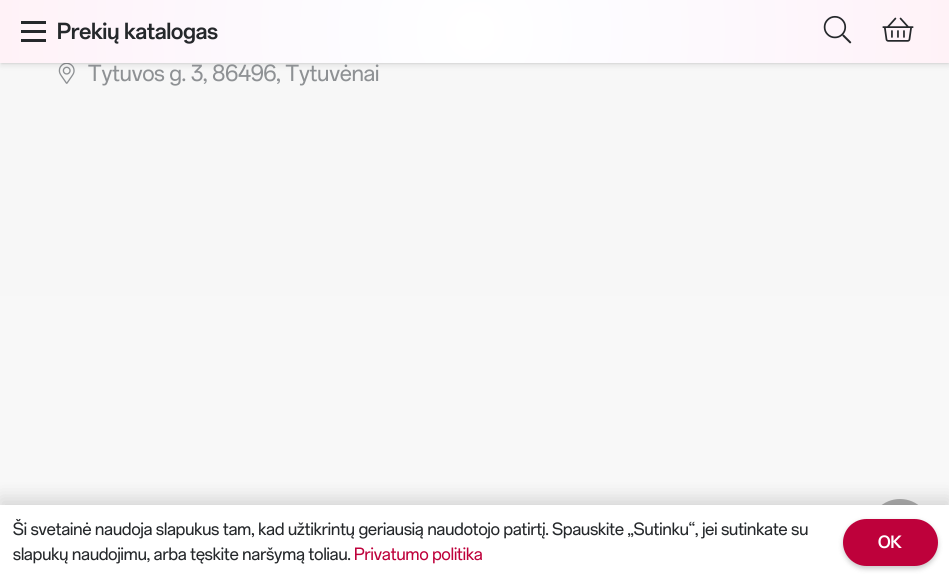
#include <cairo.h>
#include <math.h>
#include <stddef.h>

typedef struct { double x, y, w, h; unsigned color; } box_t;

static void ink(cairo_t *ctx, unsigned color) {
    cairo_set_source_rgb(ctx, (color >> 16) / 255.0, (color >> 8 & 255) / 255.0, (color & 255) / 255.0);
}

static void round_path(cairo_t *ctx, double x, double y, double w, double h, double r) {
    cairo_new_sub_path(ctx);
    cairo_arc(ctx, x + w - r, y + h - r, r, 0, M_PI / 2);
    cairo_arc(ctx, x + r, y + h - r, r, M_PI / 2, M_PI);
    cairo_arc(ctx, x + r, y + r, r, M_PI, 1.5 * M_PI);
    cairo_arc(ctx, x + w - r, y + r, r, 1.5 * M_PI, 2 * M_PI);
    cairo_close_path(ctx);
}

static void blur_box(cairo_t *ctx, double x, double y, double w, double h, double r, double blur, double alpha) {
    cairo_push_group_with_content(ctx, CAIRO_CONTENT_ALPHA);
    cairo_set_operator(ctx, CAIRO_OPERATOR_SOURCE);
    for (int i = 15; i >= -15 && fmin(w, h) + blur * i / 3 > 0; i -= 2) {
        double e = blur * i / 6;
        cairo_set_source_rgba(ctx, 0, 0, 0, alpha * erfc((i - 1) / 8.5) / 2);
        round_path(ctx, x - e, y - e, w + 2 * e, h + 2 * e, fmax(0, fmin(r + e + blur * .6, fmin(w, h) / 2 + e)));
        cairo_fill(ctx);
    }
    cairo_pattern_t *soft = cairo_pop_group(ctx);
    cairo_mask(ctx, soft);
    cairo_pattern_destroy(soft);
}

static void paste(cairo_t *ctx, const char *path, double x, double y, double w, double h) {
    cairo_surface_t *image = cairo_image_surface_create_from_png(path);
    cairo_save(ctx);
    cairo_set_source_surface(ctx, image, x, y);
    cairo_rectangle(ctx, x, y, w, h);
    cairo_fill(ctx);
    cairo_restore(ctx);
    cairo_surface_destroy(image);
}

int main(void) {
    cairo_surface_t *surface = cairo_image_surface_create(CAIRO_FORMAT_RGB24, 949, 580);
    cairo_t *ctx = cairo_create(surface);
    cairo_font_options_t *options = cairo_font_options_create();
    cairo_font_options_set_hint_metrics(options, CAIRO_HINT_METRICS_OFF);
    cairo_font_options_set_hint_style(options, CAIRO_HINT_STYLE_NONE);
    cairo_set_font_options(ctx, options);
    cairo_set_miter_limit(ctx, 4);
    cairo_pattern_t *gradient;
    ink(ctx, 0xFFFFFF);
    cairo_paint(ctx);
    gradient = cairo_pattern_create_linear(475, -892, 475, 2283);
    cairo_pattern_add_color_stop_rgba(gradient, 0, 0.953, 0.953, 0.953, 1);
    cairo_pattern_add_color_stop_rgba(gradient, 1, 1, 1, 1, 1);
    cairo_set_source(ctx, gradient);
    cairo_pattern_destroy(gradient);
    cairo_rectangle(ctx, 0, 63, 949, 442);
    cairo_fill(ctx);
    paste(ctx, "media/3.png", 58, 63, 17, 21);
    ink(ctx, 0x000000);
    blur_box(ctx, 1, 4, 948, 60, 0, 0.5, 0.05);
    blur_box(ctx, 1, 5, 948, 60, 0, 3, 0.1);
    gradient = cairo_pattern_create_radial(475, 31, 0, 475, 31, 476);
    cairo_pattern_add_color_stop_rgba(gradient, 0, 1, 1, 1, 1);
    cairo_pattern_add_color_stop_rgba(gradient, 0.25, 0.992, 0.988, 1, 1);
    cairo_pattern_add_color_stop_rgba(gradient, 0.5, 0.992, 0.976, 0.992, 1);
    cairo_pattern_add_color_stop_rgba(gradient, 0.75, 0.996, 0.961, 0.984, 1);
    cairo_pattern_add_color_stop_rgba(gradient, 1, 1, 0.949, 0.969, 1);
    cairo_set_source(ctx, gradient);
    cairo_pattern_destroy(gradient);
    cairo_rectangle(ctx, 0, 0, 949, 63);
    cairo_fill(ctx);
    {
        static const box_t items[] = {
            {21, 30, 25, 3, 0x25282B},
            {21, 21, 25, 3, 0x25282B},
            {21, 39, 25, 3, 0x25282B},
        };
        for (size_t i = 0; i < sizeof items / sizeof *items; i++) {
            ink(ctx, items[i].color);
            cairo_rectangle(ctx, items[i].x, items[i].y, items[i].w, items[i].h);
            cairo_fill(ctx);
        }
    }
    cairo_select_font_face(ctx, "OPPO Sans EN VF", CAIRO_FONT_SLANT_NORMAL, CAIRO_FONT_WEIGHT_BOLD);
    cairo_set_font_size(ctx, 21.25);
    cairo_move_to(ctx, 57, 39);
    cairo_show_text(ctx, "Prekių katalogas");
    paste(ctx, "media/1.png", 823, 15, 29, 29);
    paste(ctx, "media/2.png", 882, 17, 32, 25);
    cairo_select_font_face(ctx, "OPPO Sans EN VF", CAIRO_FONT_SLANT_NORMAL, CAIRO_FONT_WEIGHT_NORMAL);
    ink(ctx, 0x8E9194);
    cairo_move_to(ctx, 88, 81);
    cairo_show_text(ctx, "Tytuvos g. 3, 86496, Tytuvėnai");
    ink(ctx, 0xAEAEAE);
    cairo_new_path(ctx);
    cairo_arc(ctx, 900, 530, 31, 0, 2 * M_PI);
    cairo_fill(ctx);
    ink(ctx, 0x000000);
    blur_box(ctx, 0, 499, 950, 75, 0, 9.5, 0.15);
    ink(ctx, 0xFFFFFF);
    cairo_rectangle(ctx, 0, 505, 949, 75);
    cairo_fill(ctx);
    cairo_set_font_size(ctx, 16.25);
    ink(ctx, 0x25282B);
    cairo_move_to(ctx, 13, 535);
    cairo_show_text(ctx, "Ši svetainė naudoja slapukus tam, kad užtikrintų geriausią naudotojo patirtį. Spauskite „Sutinku“, jei sutinkate su");
    cairo_move_to(ctx, 13, 560);
    cairo_show_text(ctx, "slapukų naudojimu, arba tęskite naršymą toliau.");
    ink(ctx, 0xBE013B);
    cairo_move_to(ctx, 354, 560);
    cairo_show_text(ctx, "Privatumo politika");
    ink(ctx, 0x000000);
    blur_box(ctx, 843, 521, 95, 48, 24, 2.5, 0.2);
    ink(ctx, 0xBE013B);
    round_path(ctx, 843, 519, 95, 47, 23.5);
    cairo_fill(ctx);
    cairo_select_font_face(ctx, "OPPO Sans EN VF", CAIRO_FONT_SLANT_NORMAL, CAIRO_FONT_WEIGHT_BOLD);
    ink(ctx, 0xFFFFFF);
    cairo_move_to(ctx, 878, 548);
    cairo_show_text(ctx, "OK");
    cairo_surface_write_to_png(surface, "image.png");
    cairo_font_options_destroy(options);
    cairo_destroy(ctx);
    cairo_surface_destroy(surface);
    return 0;
}
